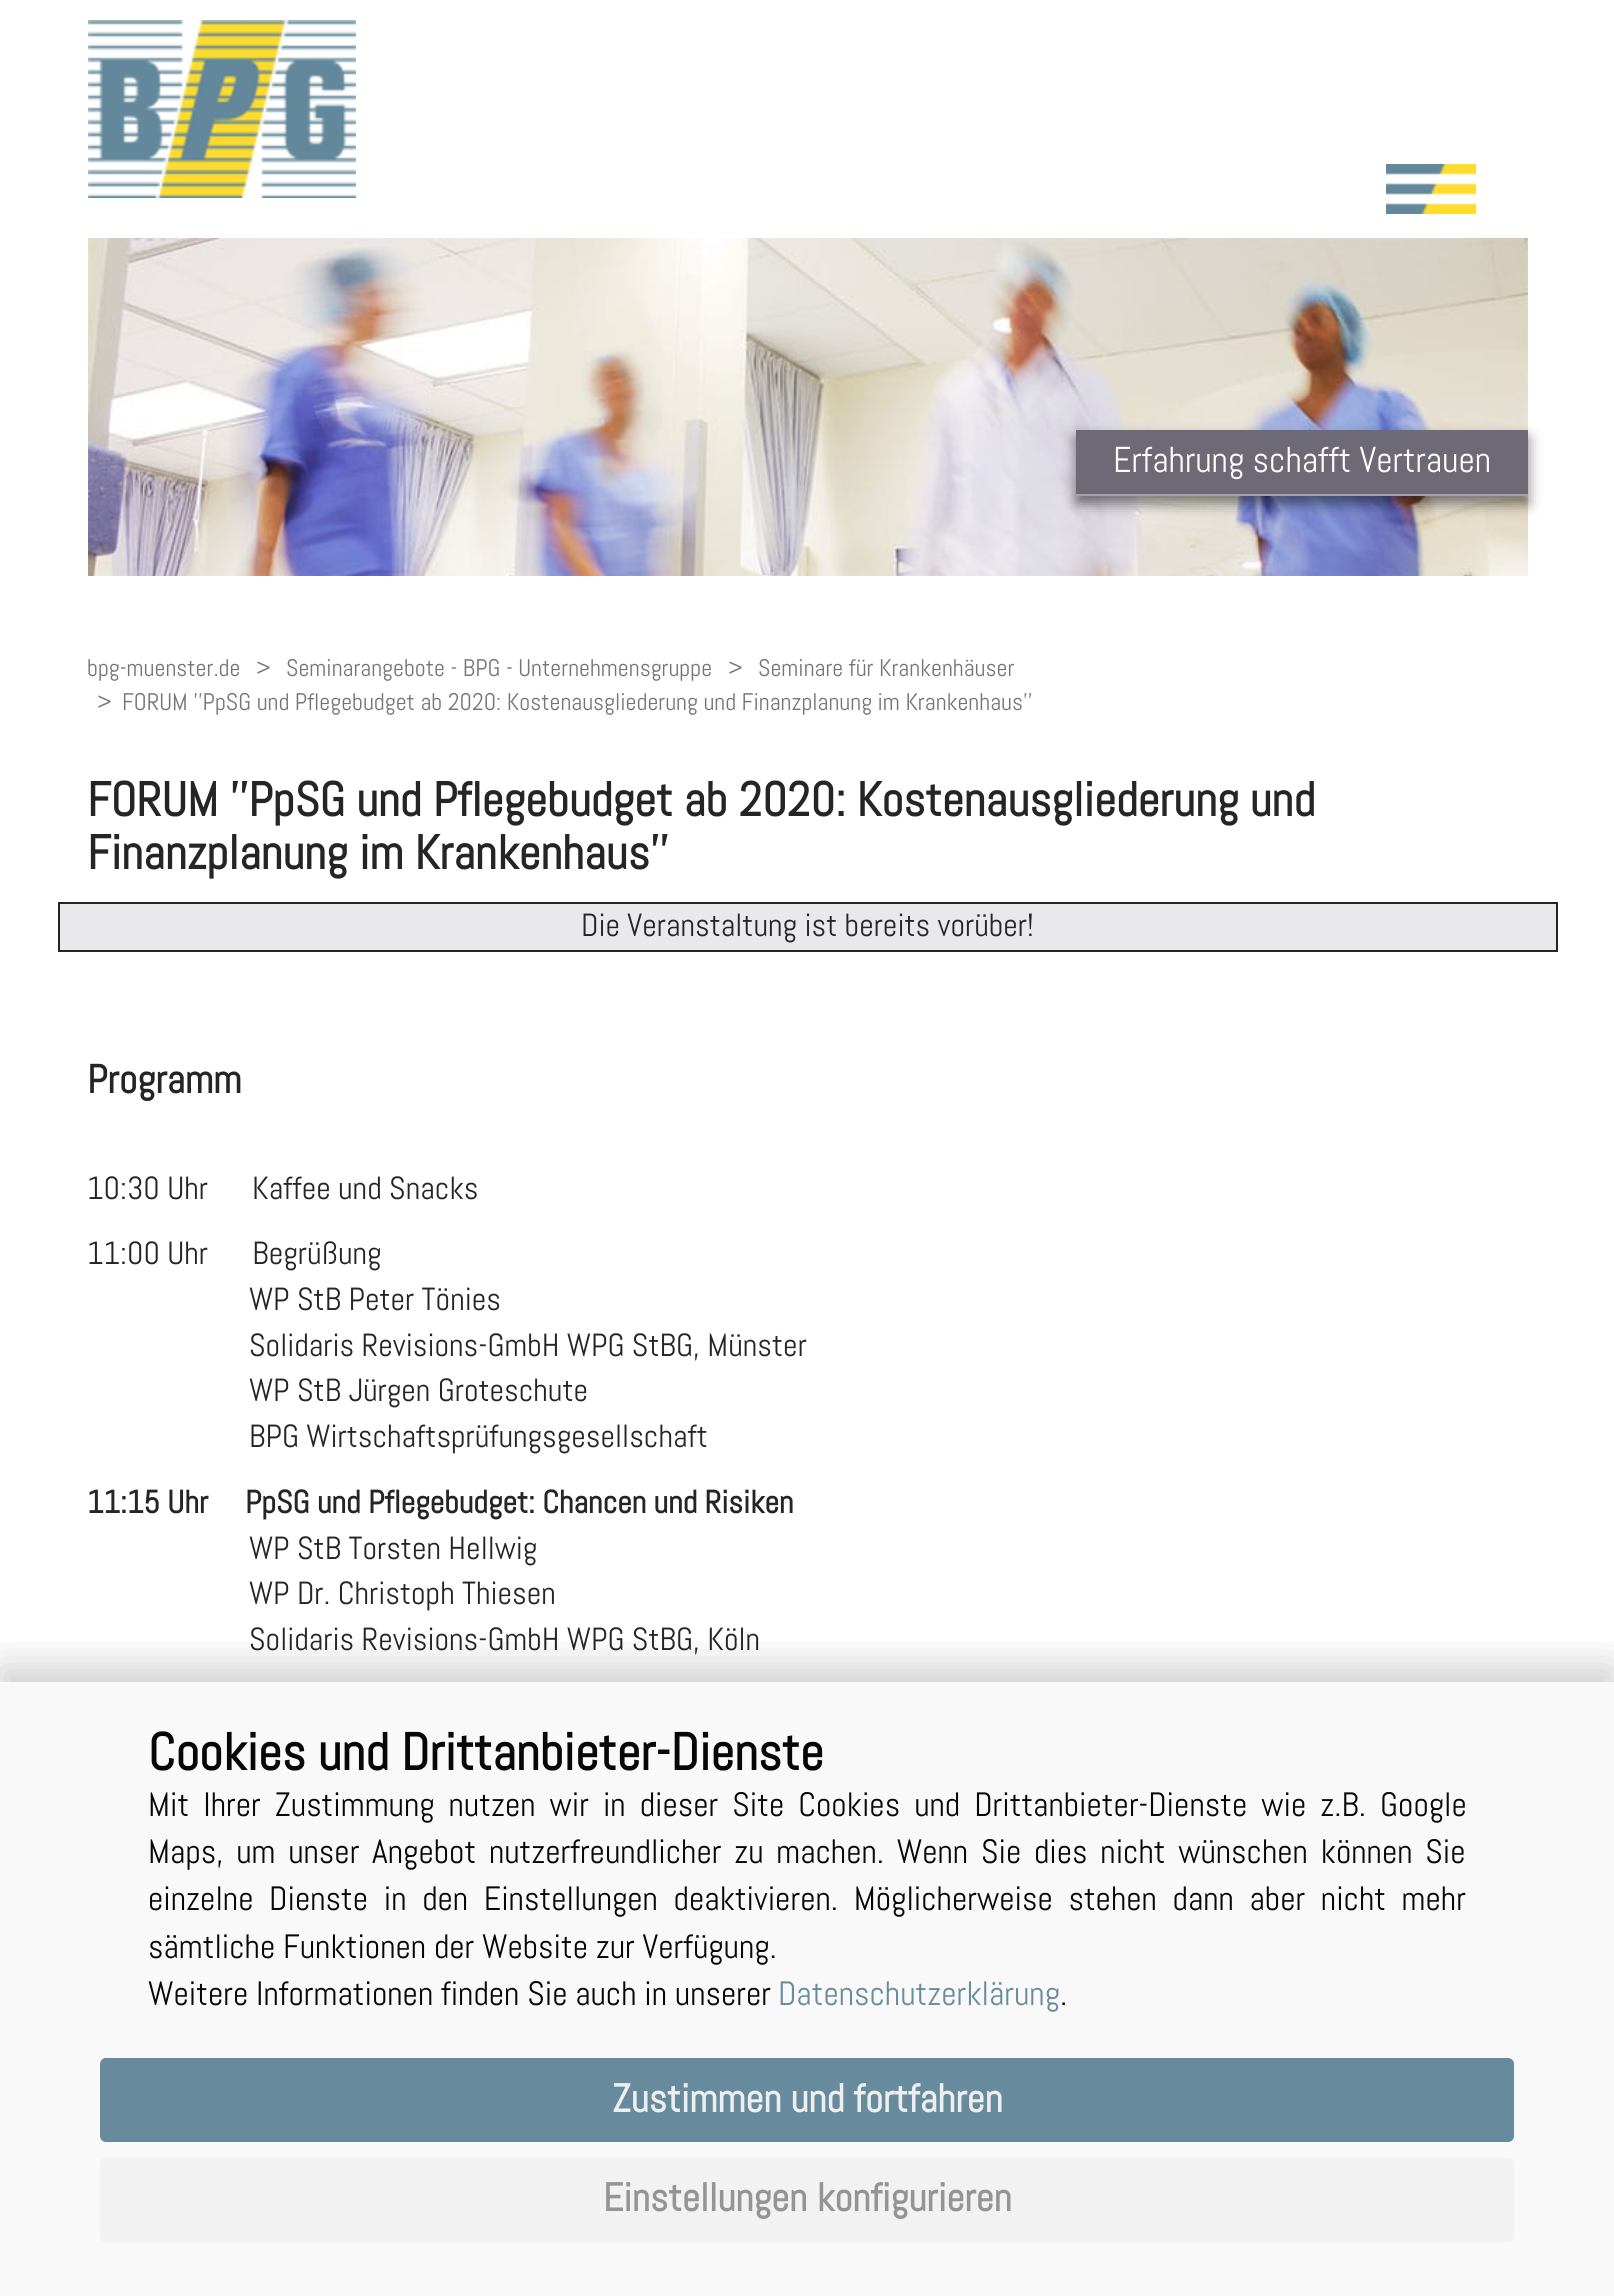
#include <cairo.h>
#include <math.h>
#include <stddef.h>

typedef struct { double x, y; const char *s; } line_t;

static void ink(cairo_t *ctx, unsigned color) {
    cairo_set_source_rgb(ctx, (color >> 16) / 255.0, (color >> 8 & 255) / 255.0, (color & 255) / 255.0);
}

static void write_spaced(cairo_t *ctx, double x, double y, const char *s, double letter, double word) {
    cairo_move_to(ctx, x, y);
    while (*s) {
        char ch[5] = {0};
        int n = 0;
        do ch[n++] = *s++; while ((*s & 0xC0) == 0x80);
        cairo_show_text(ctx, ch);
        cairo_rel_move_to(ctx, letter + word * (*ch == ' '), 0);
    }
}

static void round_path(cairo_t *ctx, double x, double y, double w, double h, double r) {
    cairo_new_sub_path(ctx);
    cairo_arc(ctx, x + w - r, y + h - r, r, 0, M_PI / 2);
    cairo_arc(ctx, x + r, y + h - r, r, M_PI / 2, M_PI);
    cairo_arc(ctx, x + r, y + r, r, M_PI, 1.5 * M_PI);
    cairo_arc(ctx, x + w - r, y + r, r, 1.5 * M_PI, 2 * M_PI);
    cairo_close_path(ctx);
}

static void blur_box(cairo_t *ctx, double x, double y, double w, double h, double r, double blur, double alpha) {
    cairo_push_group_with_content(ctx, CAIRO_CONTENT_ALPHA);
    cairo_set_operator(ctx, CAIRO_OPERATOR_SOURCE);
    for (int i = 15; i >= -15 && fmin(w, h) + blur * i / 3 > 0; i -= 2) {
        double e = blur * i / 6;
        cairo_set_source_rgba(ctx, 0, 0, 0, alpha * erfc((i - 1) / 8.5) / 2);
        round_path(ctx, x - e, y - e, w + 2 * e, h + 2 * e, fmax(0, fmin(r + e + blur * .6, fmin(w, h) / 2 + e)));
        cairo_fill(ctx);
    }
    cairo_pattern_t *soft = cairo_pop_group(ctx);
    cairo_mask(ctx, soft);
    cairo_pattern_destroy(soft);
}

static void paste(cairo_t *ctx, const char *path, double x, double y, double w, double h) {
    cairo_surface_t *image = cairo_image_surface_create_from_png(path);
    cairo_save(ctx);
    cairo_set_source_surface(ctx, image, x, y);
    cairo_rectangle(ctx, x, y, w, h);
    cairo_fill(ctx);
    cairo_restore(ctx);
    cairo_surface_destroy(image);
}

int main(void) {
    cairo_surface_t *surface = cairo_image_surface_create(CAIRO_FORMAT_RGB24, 1614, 2296);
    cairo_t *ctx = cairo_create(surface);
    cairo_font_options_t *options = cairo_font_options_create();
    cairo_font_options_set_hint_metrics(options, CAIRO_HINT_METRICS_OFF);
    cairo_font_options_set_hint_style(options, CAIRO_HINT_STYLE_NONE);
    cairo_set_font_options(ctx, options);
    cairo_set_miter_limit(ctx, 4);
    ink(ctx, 0xFFFFFF);
    cairo_paint(ctx);
    ink(ctx, 0xF9F9F9);
    cairo_rectangle(ctx, 0, 1682, 1614, 614);
    cairo_fill(ctx);
    paste(ctx, "media/1.png", 88, 20, 268, 178);
    paste(ctx, "media/2.png", 1386, 164, 90, 50);
    paste(ctx, "media/3.png", 88, 238, 1440, 338);
    ink(ctx, 0x000000);
    blur_box(ctx, 1076, 438, 452, 66, 0, 7, 0.5);
    ink(ctx, 0x6D6A76);
    cairo_rectangle(ctx, 1076, 430, 452, 64);
    cairo_fill(ctx);
    ink(ctx, 0xA4A2A7);
    cairo_rectangle(ctx, 1076, 494, 452, 2);
    cairo_fill(ctx);
    cairo_select_font_face(ctx, "Abel", CAIRO_FONT_SLANT_NORMAL, CAIRO_FONT_WEIGHT_NORMAL);
    cairo_set_font_size(ctx, 36);
    ink(ctx, 0xFFFFFF);
    cairo_move_to(ctx, 1113, 472);
    cairo_show_text(ctx, "Erfahrung schafft Vertrauen");
    cairo_set_font_size(ctx, 24);
    ink(ctx, 0x757575);
    {
        static const line_t items[] = {
            {87, 676, "bpg-muenster.de"},
            {256, 676, ">"},
            {286, 676, "Seminarangebote - BPG - Unternehmensgruppe"},
            {728, 676, ">"},
            {758, 676, "Seminare für Krankenhäuser"},
            {97, 710, ">"},
            {122, 710, "FORUM ''PpSG und Pflegebudget ab 2020: Kostenausgliederung und Finanzplanung im Krankenhaus''"},
        };
        for (size_t i = 0; i < sizeof items / sizeof *items; i++) {
            cairo_move_to(ctx, items[i].x, items[i].y);
            cairo_show_text(ctx, items[i].s);
        }
    }
    cairo_select_font_face(ctx, "Abel", CAIRO_FONT_SLANT_NORMAL, CAIRO_FONT_WEIGHT_BOLD);
    cairo_set_font_size(ctx, 48);
    ink(ctx, 0x252525);
    cairo_move_to(ctx, 87, 816);
    cairo_show_text(ctx, "FORUM ''PpSG und Pflegebudget ab 2020: Kostenausgliederung und");
    cairo_move_to(ctx, 87, 869);
    cairo_show_text(ctx, "Finanzplanung im Krankenhaus''");
    ink(ctx, 0xE9E9EB);
    cairo_rectangle(ctx, 59, 903, 1498, 48);
    cairo_fill_preserve(ctx);
    ink(ctx, 0x252525);
    cairo_stroke(ctx);
    cairo_select_font_face(ctx, "Abel", CAIRO_FONT_SLANT_NORMAL, CAIRO_FONT_WEIGHT_NORMAL);
    cairo_set_font_size(ctx, 32);
    cairo_move_to(ctx, 581, 936);
    cairo_show_text(ctx, "Die Veranstaltung ist bereits vorüber!");
    cairo_select_font_face(ctx, "Abel", CAIRO_FONT_SLANT_NORMAL, CAIRO_FONT_WEIGHT_BOLD);
    cairo_set_font_size(ctx, 40);
    cairo_move_to(ctx, 87, 1093);
    cairo_show_text(ctx, "Programm");
    cairo_select_font_face(ctx, "Abel", CAIRO_FONT_SLANT_NORMAL, CAIRO_FONT_WEIGHT_NORMAL);
    cairo_set_font_size(ctx, 32);
    {
        static const line_t items[] = {
            {87, 1199, "10:30 Uhr      Kaffee und Snacks"},
            {87, 1264, "11:00 Uhr      Begrüßung"},
            {249, 1310, "WP StB Peter Tönies"},
            {249, 1356, "Solidaris Revisions-GmbH WPG StBG, Münster"},
            {249, 1401, "WP StB Jürgen Groteschute"},
            {249, 1447, "BPG Wirtschaftsprüfungsgesellschaft"},
        };
        for (size_t i = 0; i < sizeof items / sizeof *items; i++) {
            cairo_move_to(ctx, items[i].x, items[i].y);
            cairo_show_text(ctx, items[i].s);
        }
    }
    cairo_select_font_face(ctx, "Abel", CAIRO_FONT_SLANT_NORMAL, CAIRO_FONT_WEIGHT_BOLD);
    cairo_move_to(ctx, 87, 1513);
    cairo_show_text(ctx, "11:15 Uhr");
    cairo_move_to(ctx, 245, 1513);
    cairo_show_text(ctx, "PpSG und Pflegebudget: Chancen und Risiken");
    cairo_select_font_face(ctx, "Abel", CAIRO_FONT_SLANT_NORMAL, CAIRO_FONT_WEIGHT_NORMAL);
    {
        static const line_t items[] = {
            {249, 1559, "WP StB Torsten Hellwig"},
            {249, 1604, "WP Dr. Christoph Thiesen"},
            {249, 1650, "Solidaris Revisions-GmbH WPG StBG, Köln"},
        };
        for (size_t i = 0; i < sizeof items / sizeof *items; i++) {
            cairo_move_to(ctx, items[i].x, items[i].y);
            cairo_show_text(ctx, items[i].s);
        }
    }
    cairo_save(ctx);
    cairo_rectangle(ctx, 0, 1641, 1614, 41);
    cairo_clip(ctx);
    ink(ctx, 0x000000);
    blur_box(ctx, 0, 1666, 1614, 614, 0, 20, 0.19);
    cairo_restore(ctx);
    cairo_select_font_face(ctx, "Abel", CAIRO_FONT_SLANT_NORMAL, CAIRO_FONT_WEIGHT_BOLD);
    cairo_set_font_size(ctx, 52.25);
    ink(ctx, 0x070707);
    cairo_move_to(ctx, 148, 1770);
    cairo_show_text(ctx, "Cookies und Drittanbieter-Dienste");
    cairo_select_font_face(ctx, "Abel", CAIRO_FONT_SLANT_NORMAL, CAIRO_FONT_WEIGHT_NORMAL);
    cairo_set_font_size(ctx, 33.75);
    write_spaced(ctx, 148, 1816, "Mit Ihrer Zustimmung nutzen wir in dieser Site Cookies und Drittanbieter-Dienste wie z.B. Google", 0, 6.25);
    write_spaced(ctx, 148, 1863, "Maps, um unser Angebot nutzerfreundlicher zu machen. Wenn Sie dies nicht wünschen können Sie", 0, 5);
    write_spaced(ctx, 148, 1910, "einzelne Dienste in den Einstellungen deaktivieren. Möglicherweise stehen dann aber nicht mehr", 0, 7.9);
    cairo_move_to(ctx, 148, 1958);
    cairo_show_text(ctx, "sämtliche Funktionen der Website zur Verfügung.");
    cairo_move_to(ctx, 148, 2005);
    cairo_show_text(ctx, "Weitere Informationen finden Sie auch in unserer");
    ink(ctx, 0x688B9E);
    cairo_move_to(ctx, 778, 2005);
    cairo_show_text(ctx, "Datenschutzerklärung");
    ink(ctx, 0x070707);
    cairo_move_to(ctx, 1060, 2005);
    cairo_show_text(ctx, ".");
    cairo_set_source_rgba(ctx, 0.388, 0.533, 0.608, 0.97);
    round_path(ctx, 100, 2058, 1414, 84, 6);
    cairo_fill(ctx);
    cairo_select_font_face(ctx, "Abel", CAIRO_FONT_SLANT_NORMAL, CAIRO_FONT_WEIGHT_BOLD);
    cairo_set_font_size(ctx, 39.6);
    ink(ctx, 0xEDEEEF);
    cairo_move_to(ctx, 612, 2112);
    cairo_show_text(ctx, "Zustimmen und fortfahren");
    cairo_set_source_rgba(ctx, 0.945, 0.945, 0.945, 0.91);
    round_path(ctx, 100, 2158, 1414, 84, 6);
    cairo_fill(ctx);
    ink(ctx, 0x949494);
    cairo_move_to(ctx, 603, 2211);
    cairo_show_text(ctx, "Einstellungen konfigurieren");
    cairo_surface_write_to_png(surface, "image.png");
    cairo_font_options_destroy(options);
    cairo_destroy(ctx);
    cairo_surface_destroy(surface);
    return 0;
}
